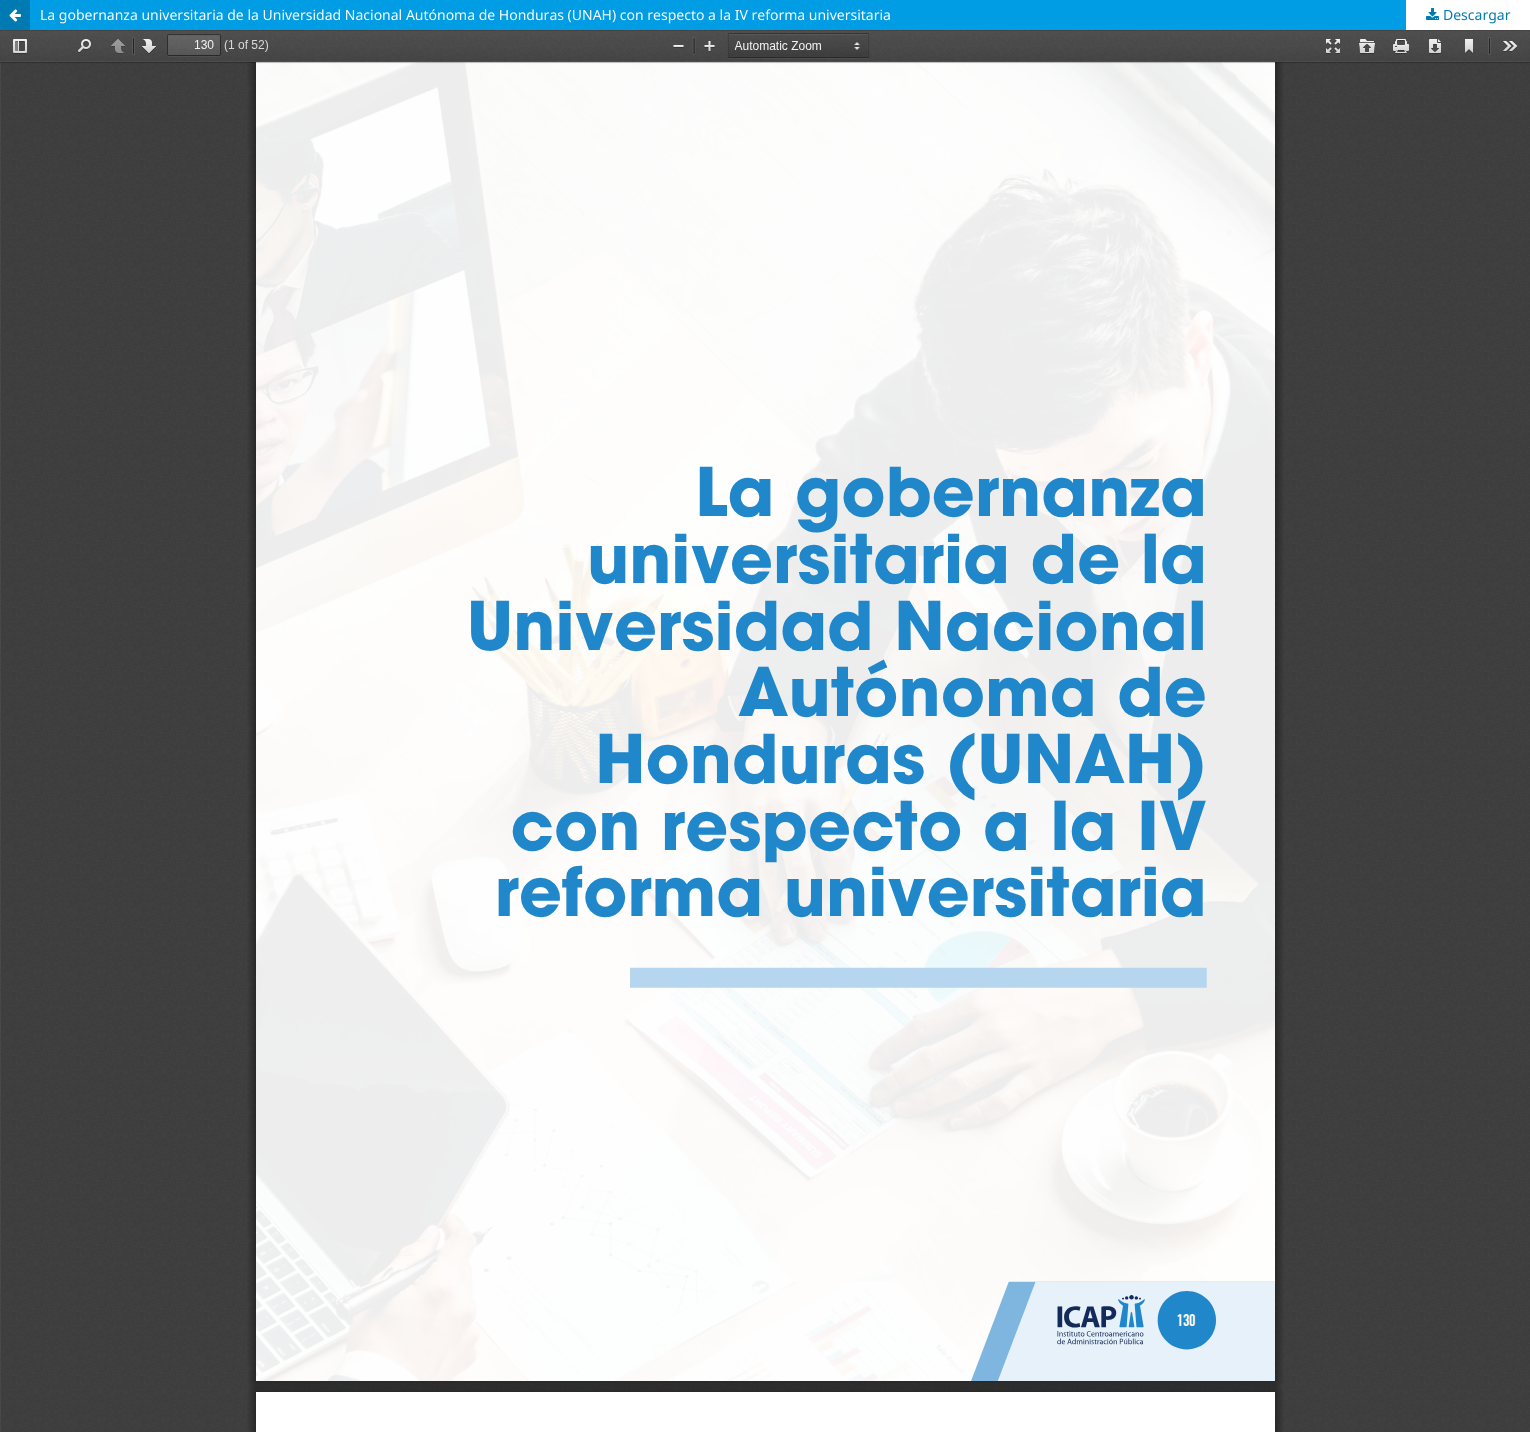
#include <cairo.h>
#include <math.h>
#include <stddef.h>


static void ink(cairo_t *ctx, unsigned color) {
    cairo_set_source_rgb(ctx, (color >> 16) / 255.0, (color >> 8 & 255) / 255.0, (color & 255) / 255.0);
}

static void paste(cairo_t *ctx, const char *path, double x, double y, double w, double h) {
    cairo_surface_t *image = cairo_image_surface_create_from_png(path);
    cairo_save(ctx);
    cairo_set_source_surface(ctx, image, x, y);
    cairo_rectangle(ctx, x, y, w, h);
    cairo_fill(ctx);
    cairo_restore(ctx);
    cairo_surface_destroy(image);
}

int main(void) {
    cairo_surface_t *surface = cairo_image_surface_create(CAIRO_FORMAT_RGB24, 1530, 1432);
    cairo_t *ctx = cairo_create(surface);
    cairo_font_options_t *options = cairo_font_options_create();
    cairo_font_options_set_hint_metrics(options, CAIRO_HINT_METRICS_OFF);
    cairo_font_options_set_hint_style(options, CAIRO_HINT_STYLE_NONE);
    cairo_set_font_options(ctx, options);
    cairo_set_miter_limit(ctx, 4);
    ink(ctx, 0xFFFFFF);
    cairo_paint(ctx);
    ink(ctx, 0x009DE5);
    cairo_rectangle(ctx, 30, 0, 1376, 30);
    cairo_fill(ctx);
    ink(ctx, 0x007AB2);
    cairo_rectangle(ctx, 0, 0, 30, 30);
    cairo_fill(ctx);
    paste(ctx, "media/1.png", 9, 9, 12, 13);
    cairo_select_font_face(ctx, "Noto Sans", CAIRO_FONT_SLANT_NORMAL, CAIRO_FONT_WEIGHT_NORMAL);
    cairo_set_font_size(ctx, 14);
    ink(ctx, 0xFFFFFF);
    cairo_move_to(ctx, 40, 20);
    cairo_show_text(ctx, "La gobernanza universitaria de la Universidad Nacional Autónoma de Honduras (UNAH) con respecto a la IV reforma universitaria");
    paste(ctx, "media/2.png", 1426, 8, 13, 12);
    ink(ctx, 0x007AB2);
    cairo_move_to(ctx, 1443, 20);
    cairo_show_text(ctx, "Descargar");
    paste(ctx, "media/3.png", 0, 30, 1530, 1402);
    cairo_surface_write_to_png(surface, "image.png");
    cairo_font_options_destroy(options);
    cairo_destroy(ctx);
    cairo_surface_destroy(surface);
    return 0;
}
